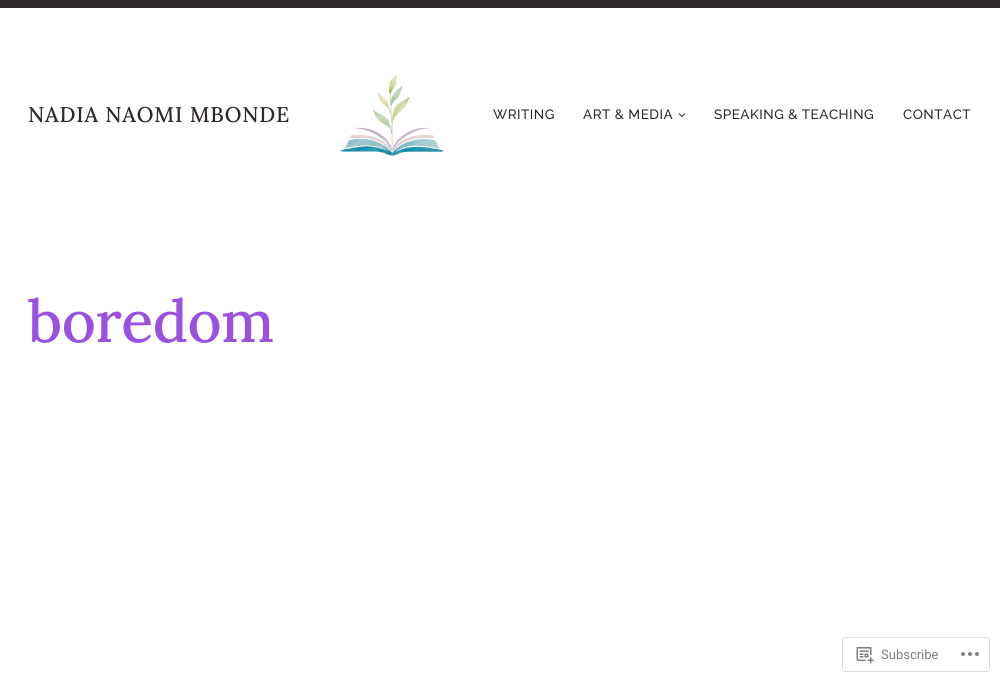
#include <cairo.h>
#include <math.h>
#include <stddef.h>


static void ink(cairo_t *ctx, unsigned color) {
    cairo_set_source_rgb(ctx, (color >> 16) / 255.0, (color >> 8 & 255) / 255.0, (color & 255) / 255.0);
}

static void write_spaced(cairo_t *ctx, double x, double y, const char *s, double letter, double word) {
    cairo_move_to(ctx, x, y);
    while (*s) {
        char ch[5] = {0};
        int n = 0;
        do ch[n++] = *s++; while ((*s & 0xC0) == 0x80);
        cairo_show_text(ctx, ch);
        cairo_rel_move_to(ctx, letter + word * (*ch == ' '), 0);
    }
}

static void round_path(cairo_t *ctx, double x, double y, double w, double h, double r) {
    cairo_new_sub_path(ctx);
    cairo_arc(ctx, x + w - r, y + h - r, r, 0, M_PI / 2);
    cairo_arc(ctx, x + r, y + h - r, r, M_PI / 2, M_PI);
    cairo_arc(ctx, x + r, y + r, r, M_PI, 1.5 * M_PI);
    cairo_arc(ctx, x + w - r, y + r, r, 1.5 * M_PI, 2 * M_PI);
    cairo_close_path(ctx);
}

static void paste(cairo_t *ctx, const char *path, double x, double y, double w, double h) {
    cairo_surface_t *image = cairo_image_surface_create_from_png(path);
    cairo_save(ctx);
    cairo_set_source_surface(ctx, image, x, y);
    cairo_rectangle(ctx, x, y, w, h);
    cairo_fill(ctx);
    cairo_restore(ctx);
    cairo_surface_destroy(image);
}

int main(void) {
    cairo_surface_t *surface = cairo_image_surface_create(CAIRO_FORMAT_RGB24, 1000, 682);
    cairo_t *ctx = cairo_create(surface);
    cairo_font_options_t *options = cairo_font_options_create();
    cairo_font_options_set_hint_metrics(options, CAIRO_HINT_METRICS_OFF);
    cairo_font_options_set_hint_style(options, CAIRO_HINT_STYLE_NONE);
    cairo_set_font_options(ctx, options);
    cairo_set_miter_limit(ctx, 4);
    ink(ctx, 0xFFFFFF);
    cairo_paint(ctx);
    ink(ctx, 0x2F2828);
    cairo_rectangle(ctx, 0, 0, 1000, 8);
    cairo_fill(ctx);
    cairo_select_font_face(ctx, "Lora Medium", CAIRO_FONT_SLANT_NORMAL, CAIRO_FONT_WEIGHT_NORMAL);
    cairo_set_font_size(ctx, 21.25);
    write_spaced(ctx, 28, 122, "NADIA NAOMI MBONDE", 0.8, 0);
    paste(ctx, "media/1.png", 340, 75, 103, 81);
    cairo_select_font_face(ctx, "Raleway Medium", CAIRO_FONT_SLANT_NORMAL, CAIRO_FONT_WEIGHT_NORMAL);
    cairo_set_font_size(ctx, 13.5);
    write_spaced(ctx, 493, 119, "WRITING", 0.5, 0);
    write_spaced(ctx, 583, 119, "ART & MEDIA", 0.5, 0);
    cairo_new_path(ctx);
    cairo_move_to(ctx, 679, 113.5);
    cairo_line_to(ctx, 682, 116.5);
    cairo_line_to(ctx, 685, 113.5);
    cairo_set_line_width(ctx, 1);
    cairo_stroke(ctx);
    write_spaced(ctx, 714, 119, "SPEAKING & TEACHING", 0.5, 0);
    write_spaced(ctx, 903, 119, "CONTACT", 0.5, 0);
    cairo_select_font_face(ctx, "Lora Medium", CAIRO_FONT_SLANT_NORMAL, CAIRO_FONT_WEIGHT_NORMAL);
    cairo_set_font_size(ctx, 59);
    ink(ctx, 0x9B51E0);
    write_spaced(ctx, 28, 342, "boredom", -0.5, 0);
    round_path(ctx, 842.5, 637.5, 147, 34, 2.5);
    ink(ctx, 0xDDDDDF);
    cairo_stroke(ctx);
    paste(ctx, "media/2.png", 856, 647, 18, 17);
    cairo_select_font_face(ctx, "Roboto", CAIRO_FONT_SLANT_NORMAL, CAIRO_FONT_WEIGHT_NORMAL);
    cairo_set_font_size(ctx, 13);
    ink(ctx, 0x7B7F85);
    cairo_move_to(ctx, 881, 659);
    cairo_show_text(ctx, "Subscribe");
    paste(ctx, "media/3.png", 961, 652, 18, 4);
    cairo_surface_write_to_png(surface, "image.png");
    cairo_font_options_destroy(options);
    cairo_destroy(ctx);
    cairo_surface_destroy(surface);
    return 0;
}
